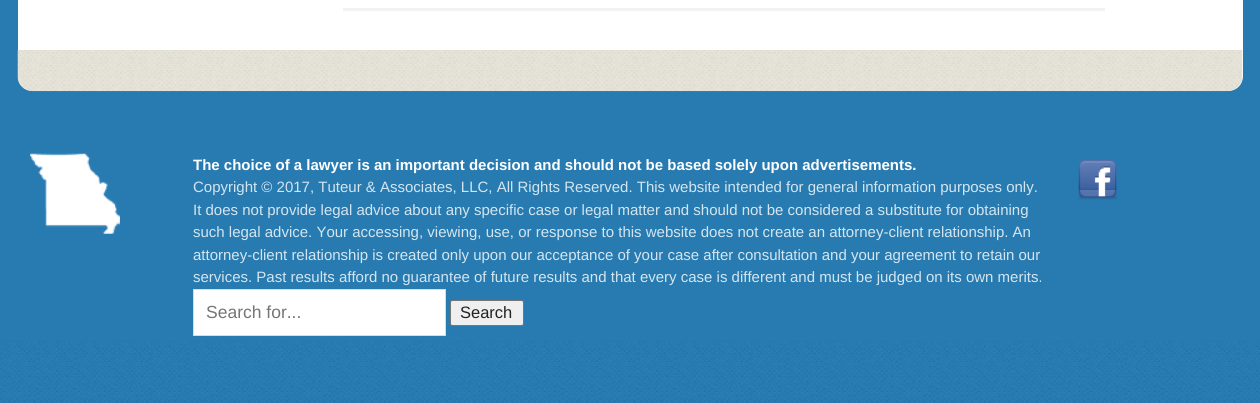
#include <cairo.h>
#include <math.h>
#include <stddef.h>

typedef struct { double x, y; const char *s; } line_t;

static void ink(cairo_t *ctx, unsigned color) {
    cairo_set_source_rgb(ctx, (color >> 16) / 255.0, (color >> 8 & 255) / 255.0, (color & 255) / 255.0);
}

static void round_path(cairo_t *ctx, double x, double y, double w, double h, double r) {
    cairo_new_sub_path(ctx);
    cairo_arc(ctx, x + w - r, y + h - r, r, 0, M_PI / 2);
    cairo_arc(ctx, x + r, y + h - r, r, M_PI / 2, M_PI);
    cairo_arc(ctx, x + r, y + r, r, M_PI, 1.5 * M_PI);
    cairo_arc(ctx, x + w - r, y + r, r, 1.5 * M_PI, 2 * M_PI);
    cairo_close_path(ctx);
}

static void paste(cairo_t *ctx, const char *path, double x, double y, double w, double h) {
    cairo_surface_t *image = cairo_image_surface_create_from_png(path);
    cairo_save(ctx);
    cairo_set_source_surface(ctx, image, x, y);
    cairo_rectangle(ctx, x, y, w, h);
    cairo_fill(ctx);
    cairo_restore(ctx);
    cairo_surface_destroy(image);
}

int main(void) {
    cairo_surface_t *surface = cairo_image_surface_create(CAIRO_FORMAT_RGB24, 1260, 403);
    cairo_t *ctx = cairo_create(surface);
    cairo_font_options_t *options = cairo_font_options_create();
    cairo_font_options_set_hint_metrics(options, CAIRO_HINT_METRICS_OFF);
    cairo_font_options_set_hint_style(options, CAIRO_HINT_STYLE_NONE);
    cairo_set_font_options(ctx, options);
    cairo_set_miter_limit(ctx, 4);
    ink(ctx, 0xFFFFFF);
    cairo_paint(ctx);
    paste(ctx, "media/1.png", 0, 341, 1260, 62);
    ink(ctx, 0x277BB1);
    cairo_rectangle(ctx, 0, 0, 1260, 341);
    cairo_fill(ctx);
    ink(ctx, 0xFFFFFF);
    cairo_new_path(ctx);
    cairo_move_to(ctx, 18, -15);
    cairo_line_to(ctx, 1243, -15);
    cairo_line_to(ctx, 1243, 76);
    cairo_curve_to(ctx, 1243, 84.5, 1236.5, 91, 1228, 91);
    cairo_line_to(ctx, 33, 91);
    cairo_curve_to(ctx, 24.5, 91, 18, 84.5, 18, 76);
    cairo_close_path(ctx);
    cairo_fill(ctx);
    paste(ctx, "media/2.png", 17, 50, 1226, 42);
    ink(ctx, 0xF2F2F2);
    cairo_rectangle(ctx, 343, 8, 762, 3);
    cairo_fill(ctx);
    paste(ctx, "media/3.png", 30, 153, 90, 81);
    cairo_select_font_face(ctx, "Liberation Sans", CAIRO_FONT_SLANT_NORMAL, CAIRO_FONT_WEIGHT_BOLD);
    cairo_set_font_size(ctx, 15);
    ink(ctx, 0xFFFFFF);
    cairo_move_to(ctx, 193, 170);
    cairo_show_text(ctx, "The choice of a lawyer is an important decision and should not be based solely upon advertisements.");
    cairo_select_font_face(ctx, "Liberation Sans", CAIRO_FONT_SLANT_NORMAL, CAIRO_FONT_WEIGHT_NORMAL);
    ink(ctx, 0xD4E5EF);
    {
        static const line_t items[] = {
            {193, 192, "Copyright © 2017, Tuteur & Associates, LLC, All Rights Reserved. This website intended for general information purposes only."},
            {193, 215, "It does not provide legal advice about any specific case or legal matter and should not be considered a substitute for obtaining"},
            {193, 237, "such legal advice. Your accessing, viewing, use, or response to this website does not create an attorney-client relationship. An"},
            {193, 260, "attorney-client relationship is created only upon our acceptance of your case after consultation and your agreement to retain our"},
            {193, 282, "services. Past results afford no guarantee of future results and that every case is different and must be judged on its own merits."},
        };
        for (size_t i = 0; i < sizeof items / sizeof *items; i++) {
            cairo_move_to(ctx, items[i].x, items[i].y);
            cairo_show_text(ctx, items[i].s);
        }
    }
    ink(ctx, 0xFFFFFF);
    cairo_rectangle(ctx, 193.5, 289.5, 252, 46);
    cairo_fill_preserve(ctx);
    ink(ctx, 0xCBE0EE);
    cairo_set_line_width(ctx, 1);
    cairo_stroke(ctx);
    cairo_set_font_size(ctx, 17.5);
    ink(ctx, 0x757575);
    cairo_move_to(ctx, 206, 318);
    cairo_show_text(ctx, "Search for...");
    ink(ctx, 0xEFEFEF);
    round_path(ctx, 450.5, 300.5, 73, 25, 2);
    cairo_fill_preserve(ctx);
    ink(ctx, 0x767676);
    cairo_stroke(ctx);
    cairo_set_font_size(ctx, 16.5);
    ink(ctx, 0x222222);
    cairo_move_to(ctx, 460, 318);
    cairo_show_text(ctx, "Search");
    paste(ctx, "media/4.png", 1078, 160, 39, 40);
    cairo_surface_write_to_png(surface, "image.png");
    cairo_font_options_destroy(options);
    cairo_destroy(ctx);
    cairo_surface_destroy(surface);
    return 0;
}
